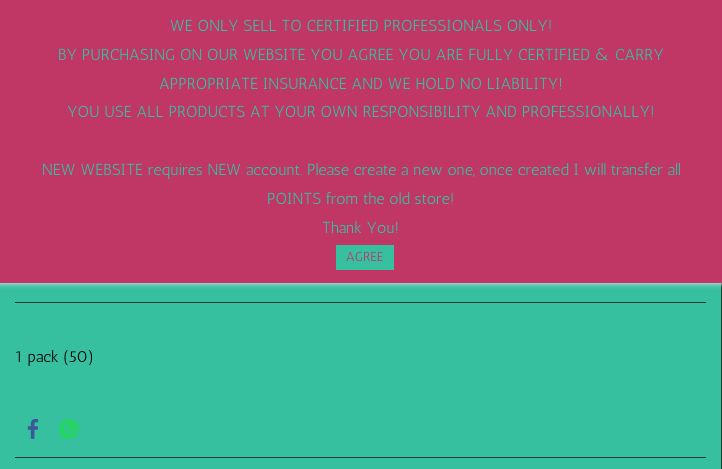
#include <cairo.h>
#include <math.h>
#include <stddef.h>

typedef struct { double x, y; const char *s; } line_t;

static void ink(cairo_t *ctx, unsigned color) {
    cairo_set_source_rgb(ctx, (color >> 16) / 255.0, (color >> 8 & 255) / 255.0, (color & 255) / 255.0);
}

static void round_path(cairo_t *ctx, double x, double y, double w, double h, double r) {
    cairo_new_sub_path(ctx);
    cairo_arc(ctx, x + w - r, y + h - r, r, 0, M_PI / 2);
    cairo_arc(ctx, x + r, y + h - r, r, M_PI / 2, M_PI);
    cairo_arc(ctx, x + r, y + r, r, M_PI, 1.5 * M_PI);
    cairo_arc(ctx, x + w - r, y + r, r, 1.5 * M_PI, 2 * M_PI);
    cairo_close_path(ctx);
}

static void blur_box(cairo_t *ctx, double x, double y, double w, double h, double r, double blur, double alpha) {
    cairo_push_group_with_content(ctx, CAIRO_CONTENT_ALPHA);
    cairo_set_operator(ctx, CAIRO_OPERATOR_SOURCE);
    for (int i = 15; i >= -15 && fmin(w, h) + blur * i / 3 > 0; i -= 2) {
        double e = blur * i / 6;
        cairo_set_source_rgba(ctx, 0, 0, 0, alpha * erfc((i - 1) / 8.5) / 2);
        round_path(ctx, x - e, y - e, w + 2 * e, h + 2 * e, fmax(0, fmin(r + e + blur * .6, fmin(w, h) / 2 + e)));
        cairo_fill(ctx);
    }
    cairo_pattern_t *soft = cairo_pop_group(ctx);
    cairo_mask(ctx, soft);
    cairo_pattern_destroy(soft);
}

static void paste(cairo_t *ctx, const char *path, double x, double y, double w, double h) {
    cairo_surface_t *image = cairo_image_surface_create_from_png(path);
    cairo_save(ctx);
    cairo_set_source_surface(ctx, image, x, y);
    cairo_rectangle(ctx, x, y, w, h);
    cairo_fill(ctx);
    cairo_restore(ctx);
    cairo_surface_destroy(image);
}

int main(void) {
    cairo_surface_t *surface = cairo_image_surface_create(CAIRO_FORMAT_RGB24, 722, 469);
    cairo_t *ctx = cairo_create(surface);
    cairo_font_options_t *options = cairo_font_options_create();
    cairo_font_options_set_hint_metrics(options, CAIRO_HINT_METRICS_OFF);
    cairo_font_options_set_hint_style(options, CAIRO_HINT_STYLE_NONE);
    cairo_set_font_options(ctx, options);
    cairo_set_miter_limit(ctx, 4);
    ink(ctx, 0x36C0A0);
    cairo_paint(ctx);
    ink(ctx, 0x103A30);
    cairo_rectangle(ctx, 721, 283, 1, 186);
    cairo_fill(ctx);
    ink(ctx, 0xD6D6D6);
    blur_box(ctx, -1, -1, 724, 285, 0, 2.5, 1);
    ink(ctx, 0xC03665);
    cairo_rectangle(ctx, 0, 0, 722, 283);
    cairo_fill(ctx);
    cairo_select_font_face(ctx, "Antic", CAIRO_FONT_SLANT_NORMAL, CAIRO_FONT_WEIGHT_NORMAL);
    cairo_set_font_size(ctx, 16);
    ink(ctx, 0x36C0A0);
    {
        static const line_t items[] = {
            {170, 31, "WE ONLY SELL TO CERTIFIED PROFESSIONALS ONLY!"},
            {58, 60, "BY PURCHASING ON OUR WEBSITE YOU AGREE YOU ARE FULLY CERTIFIED & CARRY"},
            {159, 89, "APPROPRIATE INSURANCE AND WE HOLD NO LIABILITY!"},
            {67, 117, "YOU USE ALL PRODUCTS AT YOUR OWN RESPONSIBILITY AND PROFESSIONALLY!"},
            {42, 175, "NEW WEBSITE requires NEW account. Please create a new one, once created I will transfer all"},
            {267, 204, "POINTS from the old store!"},
            {322, 233, "Thank You!"},
        };
        for (size_t i = 0; i < sizeof items / sizeof *items; i++) {
            cairo_move_to(ctx, items[i].x, items[i].y);
            cairo_show_text(ctx, items[i].s);
        }
    }
    cairo_rectangle(ctx, 336, 245, 58, 25);
    cairo_fill(ctx);
    cairo_set_font_size(ctx, 13);
    ink(ctx, 0xC03665);
    cairo_move_to(ctx, 346, 261);
    cairo_show_text(ctx, "AGREE");
    ink(ctx, 0x103A30);
    cairo_rectangle(ctx, 15, 302, 691, 1);
    cairo_fill(ctx);
    cairo_set_font_size(ctx, 16);
    ink(ctx, 0x000000);
    cairo_move_to(ctx, 15, 362);
    cairo_show_text(ctx, "1 pack (50)");
    ink(ctx, 0x103A30);
    cairo_rectangle(ctx, 15, 457, 691, 1);
    cairo_fill(ctx);
    paste(ctx, "media/1.png", 27, 419, 12, 20);
    paste(ctx, "media/2.png", 59, 419, 20, 20);
    cairo_surface_write_to_png(surface, "image.png");
    cairo_font_options_destroy(options);
    cairo_destroy(ctx);
    cairo_surface_destroy(surface);
    return 0;
}
